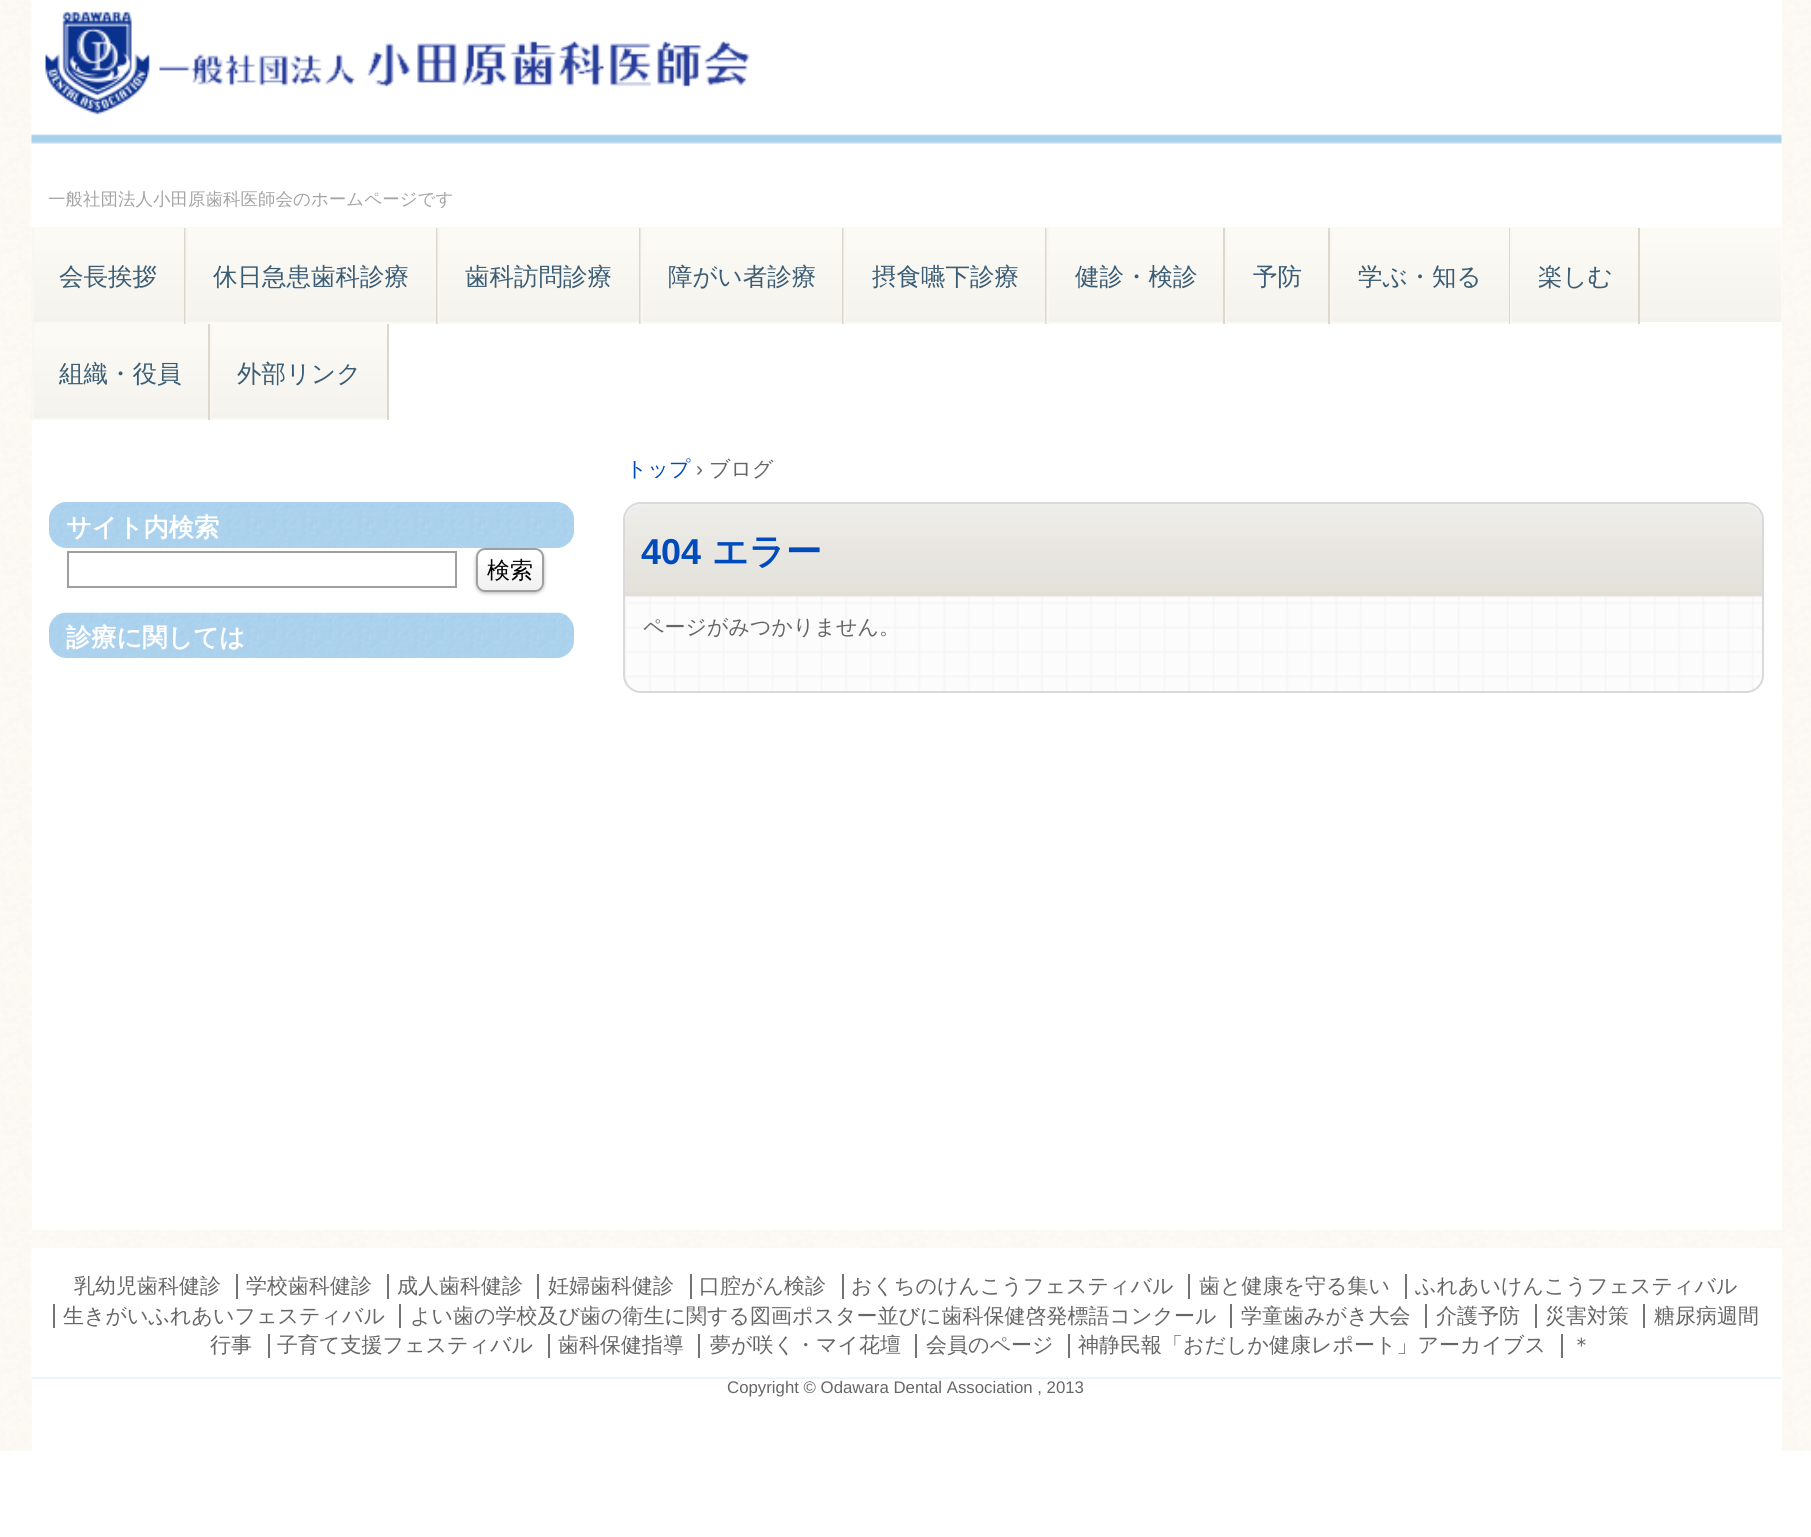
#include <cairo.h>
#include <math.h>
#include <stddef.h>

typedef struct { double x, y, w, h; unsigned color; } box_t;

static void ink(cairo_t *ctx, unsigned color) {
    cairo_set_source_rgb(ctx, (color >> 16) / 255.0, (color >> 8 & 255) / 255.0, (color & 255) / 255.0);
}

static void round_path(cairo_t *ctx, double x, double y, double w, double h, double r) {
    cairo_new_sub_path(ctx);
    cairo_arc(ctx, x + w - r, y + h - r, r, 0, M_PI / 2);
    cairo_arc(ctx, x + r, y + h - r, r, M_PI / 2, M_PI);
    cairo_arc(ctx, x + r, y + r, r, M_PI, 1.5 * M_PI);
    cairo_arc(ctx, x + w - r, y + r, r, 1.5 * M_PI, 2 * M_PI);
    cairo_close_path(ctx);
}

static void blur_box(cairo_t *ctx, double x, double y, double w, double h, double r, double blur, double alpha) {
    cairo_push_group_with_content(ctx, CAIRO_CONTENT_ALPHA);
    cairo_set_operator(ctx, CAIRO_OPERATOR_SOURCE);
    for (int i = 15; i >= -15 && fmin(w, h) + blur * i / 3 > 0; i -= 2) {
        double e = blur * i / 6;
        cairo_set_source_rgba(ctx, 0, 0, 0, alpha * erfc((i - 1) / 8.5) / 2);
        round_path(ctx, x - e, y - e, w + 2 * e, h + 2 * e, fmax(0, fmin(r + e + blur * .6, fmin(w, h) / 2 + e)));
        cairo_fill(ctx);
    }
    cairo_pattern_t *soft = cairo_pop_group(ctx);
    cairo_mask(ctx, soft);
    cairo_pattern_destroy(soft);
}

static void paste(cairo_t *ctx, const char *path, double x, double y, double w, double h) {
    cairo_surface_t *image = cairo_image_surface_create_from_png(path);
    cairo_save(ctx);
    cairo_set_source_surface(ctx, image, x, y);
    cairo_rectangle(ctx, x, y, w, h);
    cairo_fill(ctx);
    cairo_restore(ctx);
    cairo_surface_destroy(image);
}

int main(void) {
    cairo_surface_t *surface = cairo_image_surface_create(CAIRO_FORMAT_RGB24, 1811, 1537);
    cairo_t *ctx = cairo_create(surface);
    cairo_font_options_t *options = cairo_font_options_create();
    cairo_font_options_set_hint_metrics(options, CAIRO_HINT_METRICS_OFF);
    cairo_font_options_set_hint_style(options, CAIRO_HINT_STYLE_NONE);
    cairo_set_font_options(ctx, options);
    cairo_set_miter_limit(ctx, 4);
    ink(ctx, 0xFFFFFF);
    cairo_paint(ctx);
    paste(ctx, "media/1.png", 0, 0, 1811, 1451);
    ink(ctx, 0xFFFFFF);
    cairo_rectangle(ctx, 32, 0, 1750, 1230);
    cairo_fill(ctx);
    paste(ctx, "media/2.png", 31, 0, 1751, 231);
    paste(ctx, "media/3.png", 45, 11, 705, 104);
    cairo_select_font_face(ctx, "WenQuanYi Zen Hei Medium", CAIRO_FONT_SLANT_NORMAL, CAIRO_FONT_WEIGHT_NORMAL);
    cairo_set_font_size(ctx, 17.5);
    ink(ctx, 0xA4A4A4);
    cairo_move_to(ctx, 48, 205);
    cairo_show_text(ctx, "一般社団法人小田原歯科医師会のホームページです");
    paste(ctx, "media/4.png", 31, 227, 1751, 95);
    paste(ctx, "media/5.png", 32, 227, 154, 97);
    ink(ctx, 0xDDD8CB);
    cairo_rectangle(ctx, 184, 228, 2, 96);
    cairo_fill(ctx);
    ink(ctx, 0xF9F7F3);
    cairo_rectangle(ctx, 32, 228, 2, 96);
    cairo_fill(ctx);
    cairo_set_font_size(ctx, 24.5);
    ink(ctx, 0x3A5C74);
    cairo_move_to(ctx, 59, 285);
    cairo_show_text(ctx, "会長挨拶");
    paste(ctx, "media/6.png", 185, 227, 253, 97);
    ink(ctx, 0xDDD8CB);
    cairo_rectangle(ctx, 436, 228, 2, 96);
    cairo_fill(ctx);
    ink(ctx, 0xF9F7F3);
    cairo_rectangle(ctx, 186, 228, 2, 96);
    cairo_fill(ctx);
    ink(ctx, 0x3A5C74);
    cairo_move_to(ctx, 213, 285);
    cairo_show_text(ctx, "休日急患歯科診療");
    paste(ctx, "media/7.png", 437, 227, 204, 97);
    ink(ctx, 0xDDD8CB);
    cairo_rectangle(ctx, 639, 228, 2, 96);
    cairo_fill(ctx);
    ink(ctx, 0xF9F7F3);
    cairo_rectangle(ctx, 438, 228, 2, 96);
    cairo_fill(ctx);
    ink(ctx, 0x3A5C74);
    cairo_move_to(ctx, 465, 285);
    cairo_show_text(ctx, "歯科訪問診療");
    paste(ctx, "media/7.png", 640, 227, 204, 97);
    ink(ctx, 0xDDD8CB);
    cairo_rectangle(ctx, 842, 228, 2, 96);
    cairo_fill(ctx);
    ink(ctx, 0xF9F7F3);
    cairo_rectangle(ctx, 641, 228, 2, 96);
    cairo_fill(ctx);
    ink(ctx, 0x3A5C74);
    cairo_move_to(ctx, 668, 285);
    cairo_show_text(ctx, "障がい者診療");
    paste(ctx, "media/7.png", 843, 227, 204, 97);
    ink(ctx, 0xDDD8CB);
    cairo_rectangle(ctx, 1045, 228, 2, 96);
    cairo_fill(ctx);
    ink(ctx, 0xF9F7F3);
    cairo_rectangle(ctx, 844, 228, 2, 96);
    cairo_fill(ctx);
    ink(ctx, 0x3A5C74);
    cairo_move_to(ctx, 872, 285);
    cairo_show_text(ctx, "摂食嚥下診療");
    paste(ctx, "media/8.png", 1046, 227, 179, 97);
    ink(ctx, 0xDDD8CB);
    cairo_rectangle(ctx, 1223, 228, 2, 96);
    cairo_fill(ctx);
    ink(ctx, 0xF9F7F3);
    cairo_rectangle(ctx, 1047, 228, 2, 96);
    cairo_fill(ctx);
    ink(ctx, 0x3A5C74);
    cairo_move_to(ctx, 1075, 285);
    cairo_show_text(ctx, "健診・検診");
    paste(ctx, "media/9.png", 1225, 227, 105, 97);
    ink(ctx, 0xDDD8CB);
    cairo_rectangle(ctx, 1328, 228, 2, 96);
    cairo_fill(ctx);
    ink(ctx, 0xF9F7F3);
    cairo_rectangle(ctx, 1225, 228, 2, 96);
    cairo_fill(ctx);
    ink(ctx, 0x3A5C74);
    cairo_move_to(ctx, 1253, 285);
    cairo_show_text(ctx, "予防");
    paste(ctx, "media/10.png", 1330, 227, 180, 97);
    ink(ctx, 0xDDD8CB);
    cairo_rectangle(ctx, 1509, 228, 1, 96);
    cairo_fill(ctx);
    ink(ctx, 0xF9F7F3);
    cairo_rectangle(ctx, 1330, 228, 2, 96);
    cairo_fill(ctx);
    ink(ctx, 0x3A5C74);
    cairo_move_to(ctx, 1358, 285);
    cairo_show_text(ctx, "学ぶ・知る");
    paste(ctx, "media/11.png", 1510, 227, 130, 97);
    ink(ctx, 0xDDD8CB);
    cairo_rectangle(ctx, 1638, 228, 2, 96);
    cairo_fill(ctx);
    ink(ctx, 0xF9F7F3);
    cairo_rectangle(ctx, 1510, 228, 2, 96);
    cairo_fill(ctx);
    ink(ctx, 0x3A5C74);
    cairo_move_to(ctx, 1538, 285);
    cairo_show_text(ctx, "楽しむ");
    paste(ctx, "media/12.png", 31, 323, 179, 97);
    ink(ctx, 0xDDD8CB);
    cairo_rectangle(ctx, 208, 324, 2, 96);
    cairo_fill(ctx);
    ink(ctx, 0xF9F7F3);
    cairo_rectangle(ctx, 32, 324, 2, 96);
    cairo_fill(ctx);
    ink(ctx, 0x3A5C74);
    cairo_move_to(ctx, 59, 382);
    cairo_show_text(ctx, "組織・役員");
    paste(ctx, "media/13.png", 212, 326, 175, 94);
    {
        static const box_t items[] = {
            {210, 324, 179, 2, 0xFCFAF4},
            {387, 324, 2, 96, 0xDDD8CB},
            {210, 324, 2, 96, 0xF9F7F3},
        };
        for (size_t i = 0; i < sizeof items / sizeof *items; i++) {
            ink(ctx, items[i].color);
            cairo_rectangle(ctx, items[i].x, items[i].y, items[i].w, items[i].h);
            cairo_fill(ctx);
        }
    }
    ink(ctx, 0x3A5C74);
    cairo_move_to(ctx, 237, 382);
    cairo_show_text(ctx, "外部リンク");
    cairo_set_font_size(ctx, 21);
    ink(ctx, 0x004BBC);
    cairo_move_to(ctx, 626, 476);
    cairo_show_text(ctx, "トップ");
    cairo_select_font_face(ctx, "Liberation Sans", CAIRO_FONT_SLANT_NORMAL, CAIRO_FONT_WEIGHT_NORMAL);
    ink(ctx, 0x666666);
    cairo_move_to(ctx, 696, 476);
    cairo_show_text(ctx, "›");
    cairo_select_font_face(ctx, "WenQuanYi Zen Hei Medium", CAIRO_FONT_SLANT_NORMAL, CAIRO_FONT_WEIGHT_NORMAL);
    cairo_move_to(ctx, 709, 476);
    cairo_show_text(ctx, "ブログ");
    ink(ctx, 0x000000);
    blur_box(ctx, 476, 550, 68, 43, 9, 2, 0.3);
    ink(ctx, 0xABD2ED);
    round_path(ctx, 49, 502, 525, 46, 18);
    cairo_fill(ctx);
    paste(ctx, "media/14.png", 49, 502, 525, 46);
    cairo_select_font_face(ctx, "WenQuanYi Zen Hei", CAIRO_FONT_SLANT_NORMAL, CAIRO_FONT_WEIGHT_BOLD);
    cairo_set_font_size(ctx, 25.25);
    ink(ctx, 0xFFFFFF);
    cairo_move_to(ctx, 66, 536);
    cairo_show_text(ctx, "サイト内検索");
    cairo_rectangle(ctx, 68, 552, 388, 35);
    ink(ctx, 0x9F9F9F);
    cairo_stroke(ctx);
    ink(ctx, 0xFFFFFF);
    round_path(ctx, 476, 548, 68, 44, 9);
    cairo_fill(ctx);
    paste(ctx, "media/15.png", 476, 565, 68, 27);
    round_path(ctx, 477, 549, 66, 42, 8);
    ink(ctx, 0x9F9F9F);
    cairo_stroke(ctx);
    cairo_select_font_face(ctx, "WenQuanYi Zen Hei Medium", CAIRO_FONT_SLANT_NORMAL, CAIRO_FONT_WEIGHT_NORMAL);
    cairo_set_font_size(ctx, 23);
    ink(ctx, 0x000000);
    cairo_move_to(ctx, 487, 578);
    cairo_show_text(ctx, "検索");
    paste(ctx, "media/16.png", 49, 612, 525, 46);
    cairo_select_font_face(ctx, "WenQuanYi Zen Hei", CAIRO_FONT_SLANT_NORMAL, CAIRO_FONT_WEIGHT_BOLD);
    cairo_set_font_size(ctx, 25.25);
    ink(ctx, 0xFFFFFF);
    cairo_move_to(ctx, 66, 646);
    cairo_show_text(ctx, "診療に関しては");
    paste(ctx, "media/17.png", 623, 502, 1141, 191);
    round_path(ctx, 624, 503, 1139, 189, 17);
    ink(ctx, 0xD9D9D9);
    cairo_stroke(ctx);
    ink(ctx, 0xFFFFFF);
    cairo_new_path(ctx);
    cairo_move_to(ctx, 643, 504);
    cairo_line_to(ctx, 1744, 504);
    cairo_curve_to(ctx, 1754, 504, 1762, 512, 1762, 522);
    cairo_line_to(ctx, 1762, 597);
    cairo_line_to(ctx, 625, 597);
    cairo_line_to(ctx, 625, 522);
    cairo_curve_to(ctx, 625, 512, 633, 504, 643, 504);
    cairo_close_path(ctx);
    cairo_fill(ctx);
    paste(ctx, "media/18.png", 625, 504, 1137, 93);
    cairo_select_font_face(ctx, "Liberation Sans", CAIRO_FONT_SLANT_NORMAL, CAIRO_FONT_WEIGHT_BOLD);
    cairo_set_font_size(ctx, 36);
    ink(ctx, 0x004BBC);
    cairo_move_to(ctx, 641, 564);
    cairo_show_text(ctx, "404");
    cairo_select_font_face(ctx, "WenQuanYi Zen Hei", CAIRO_FONT_SLANT_NORMAL, CAIRO_FONT_WEIGHT_BOLD);
    cairo_move_to(ctx, 712, 564);
    cairo_show_text(ctx, "エラー");
    cairo_select_font_face(ctx, "WenQuanYi Zen Hei Medium", CAIRO_FONT_SLANT_NORMAL, CAIRO_FONT_WEIGHT_NORMAL);
    cairo_set_font_size(ctx, 21);
    ink(ctx, 0x666666);
    cairo_move_to(ctx, 643, 634);
    cairo_show_text(ctx, "ページがみつかりません。");
    ink(ctx, 0xFFFFFF);
    cairo_rectangle(ctx, 32, 1248, 1750, 203);
    cairo_fill(ctx);
    paste(ctx, "media/19.png", 31, 1248, 1751, 131);
    ink(ctx, 0x666666);
    cairo_move_to(ctx, 74, 1293);
    cairo_show_text(ctx, "乳幼児歯科健診");
    cairo_move_to(ctx, 246, 1293);
    cairo_show_text(ctx, "学校歯科健診");
    ink(ctx, 0x737373);
    cairo_rectangle(ctx, 236, 1274, 2, 25);
    cairo_fill(ctx);
    ink(ctx, 0x666666);
    cairo_move_to(ctx, 397, 1293);
    cairo_show_text(ctx, "成人歯科健診");
    ink(ctx, 0x737373);
    cairo_rectangle(ctx, 387, 1274, 2, 25);
    cairo_fill(ctx);
    ink(ctx, 0x666666);
    cairo_move_to(ctx, 548, 1293);
    cairo_show_text(ctx, "妊婦歯科健診");
    ink(ctx, 0x737373);
    cairo_rectangle(ctx, 537, 1274, 2, 25);
    cairo_fill(ctx);
    ink(ctx, 0x666666);
    cairo_move_to(ctx, 699, 1293);
    cairo_show_text(ctx, "口腔がん検診");
    ink(ctx, 0x737373);
    cairo_rectangle(ctx, 690, 1274, 2, 25);
    cairo_fill(ctx);
    ink(ctx, 0x666666);
    cairo_move_to(ctx, 851, 1293);
    cairo_show_text(ctx, "おくちのけんこうフェスティバル");
    ink(ctx, 0x737373);
    cairo_rectangle(ctx, 842, 1274, 2, 25);
    cairo_fill(ctx);
    ink(ctx, 0x666666);
    cairo_move_to(ctx, 1199, 1293);
    cairo_show_text(ctx, "歯と健康を守る集い");
    ink(ctx, 0x737373);
    cairo_rectangle(ctx, 1188, 1274, 2, 25);
    cairo_fill(ctx);
    ink(ctx, 0x666666);
    cairo_move_to(ctx, 1415, 1293);
    cairo_show_text(ctx, "ふれあいけんこうフェスティバル");
    ink(ctx, 0x737373);
    cairo_rectangle(ctx, 1405, 1274, 2, 25);
    cairo_fill(ctx);
    ink(ctx, 0x666666);
    cairo_move_to(ctx, 63, 1323);
    cairo_show_text(ctx, "生きがいふれあいフェスティバル");
    ink(ctx, 0x737373);
    cairo_rectangle(ctx, 53, 1304, 2, 24);
    cairo_fill(ctx);
    ink(ctx, 0x666666);
    cairo_move_to(ctx, 410, 1323);
    cairo_show_text(ctx, "よい歯の学校及び歯の衛生に関する図画ポスター並びに歯科保健啓発標語コンクール");
    ink(ctx, 0x737373);
    cairo_rectangle(ctx, 399, 1304, 2, 24);
    cairo_fill(ctx);
    ink(ctx, 0x666666);
    cairo_move_to(ctx, 1241, 1323);
    cairo_show_text(ctx, "学童歯みがき大会");
    ink(ctx, 0x737373);
    cairo_rectangle(ctx, 1230, 1304, 2, 24);
    cairo_fill(ctx);
    ink(ctx, 0x666666);
    cairo_move_to(ctx, 1436, 1323);
    cairo_show_text(ctx, "介護予防");
    ink(ctx, 0x737373);
    cairo_rectangle(ctx, 1425, 1304, 2, 24);
    cairo_fill(ctx);
    ink(ctx, 0x666666);
    cairo_move_to(ctx, 1545, 1323);
    cairo_show_text(ctx, "災害対策");
    ink(ctx, 0x737373);
    cairo_rectangle(ctx, 1535, 1304, 2, 24);
    cairo_fill(ctx);
    ink(ctx, 0x666666);
    cairo_move_to(ctx, 1654, 1323);
    cairo_show_text(ctx, "糖尿病週間");
    ink(ctx, 0x737373);
    cairo_rectangle(ctx, 1643, 1304, 2, 24);
    cairo_fill(ctx);
    ink(ctx, 0x666666);
    cairo_move_to(ctx, 210, 1352);
    cairo_show_text(ctx, "行事");
    cairo_move_to(ctx, 277, 1352);
    cairo_show_text(ctx, "子育て支援フェスティバル");
    ink(ctx, 0x737373);
    cairo_rectangle(ctx, 268, 1334, 2, 24);
    cairo_fill(ctx);
    ink(ctx, 0x666666);
    cairo_move_to(ctx, 558, 1352);
    cairo_show_text(ctx, "歯科保健指導");
    ink(ctx, 0x737373);
    cairo_rectangle(ctx, 548, 1334, 2, 24);
    cairo_fill(ctx);
    ink(ctx, 0x666666);
    cairo_move_to(ctx, 710, 1352);
    cairo_show_text(ctx, "夢が咲く・マイ花壇");
    ink(ctx, 0x737373);
    cairo_rectangle(ctx, 698, 1334, 2, 24);
    cairo_fill(ctx);
    ink(ctx, 0x666666);
    cairo_move_to(ctx, 926, 1352);
    cairo_show_text(ctx, "会員のページ");
    ink(ctx, 0x737373);
    cairo_rectangle(ctx, 915, 1334, 2, 24);
    cairo_fill(ctx);
    ink(ctx, 0x666666);
    cairo_move_to(ctx, 1078, 1352);
    cairo_show_text(ctx, "神静民報「おだしか健康レポート」アーカイブス");
    ink(ctx, 0x737373);
    cairo_rectangle(ctx, 1068, 1334, 2, 24);
    cairo_fill(ctx);
    ink(ctx, 0x666666);
    cairo_move_to(ctx, 1571, 1352);
    cairo_show_text(ctx, "＊");
    ink(ctx, 0x737373);
    cairo_rectangle(ctx, 1561, 1334, 2, 24);
    cairo_fill(ctx);
    cairo_select_font_face(ctx, "Liberation Sans", CAIRO_FONT_SLANT_NORMAL, CAIRO_FONT_WEIGHT_NORMAL);
    cairo_set_font_size(ctx, 16.8);
    ink(ctx, 0x666666);
    cairo_move_to(ctx, 727, 1393);
    cairo_show_text(ctx, "Copyright © Odawara Dental Association , 2013");
    cairo_surface_write_to_png(surface, "image.png");
    cairo_font_options_destroy(options);
    cairo_destroy(ctx);
    cairo_surface_destroy(surface);
    return 0;
}
